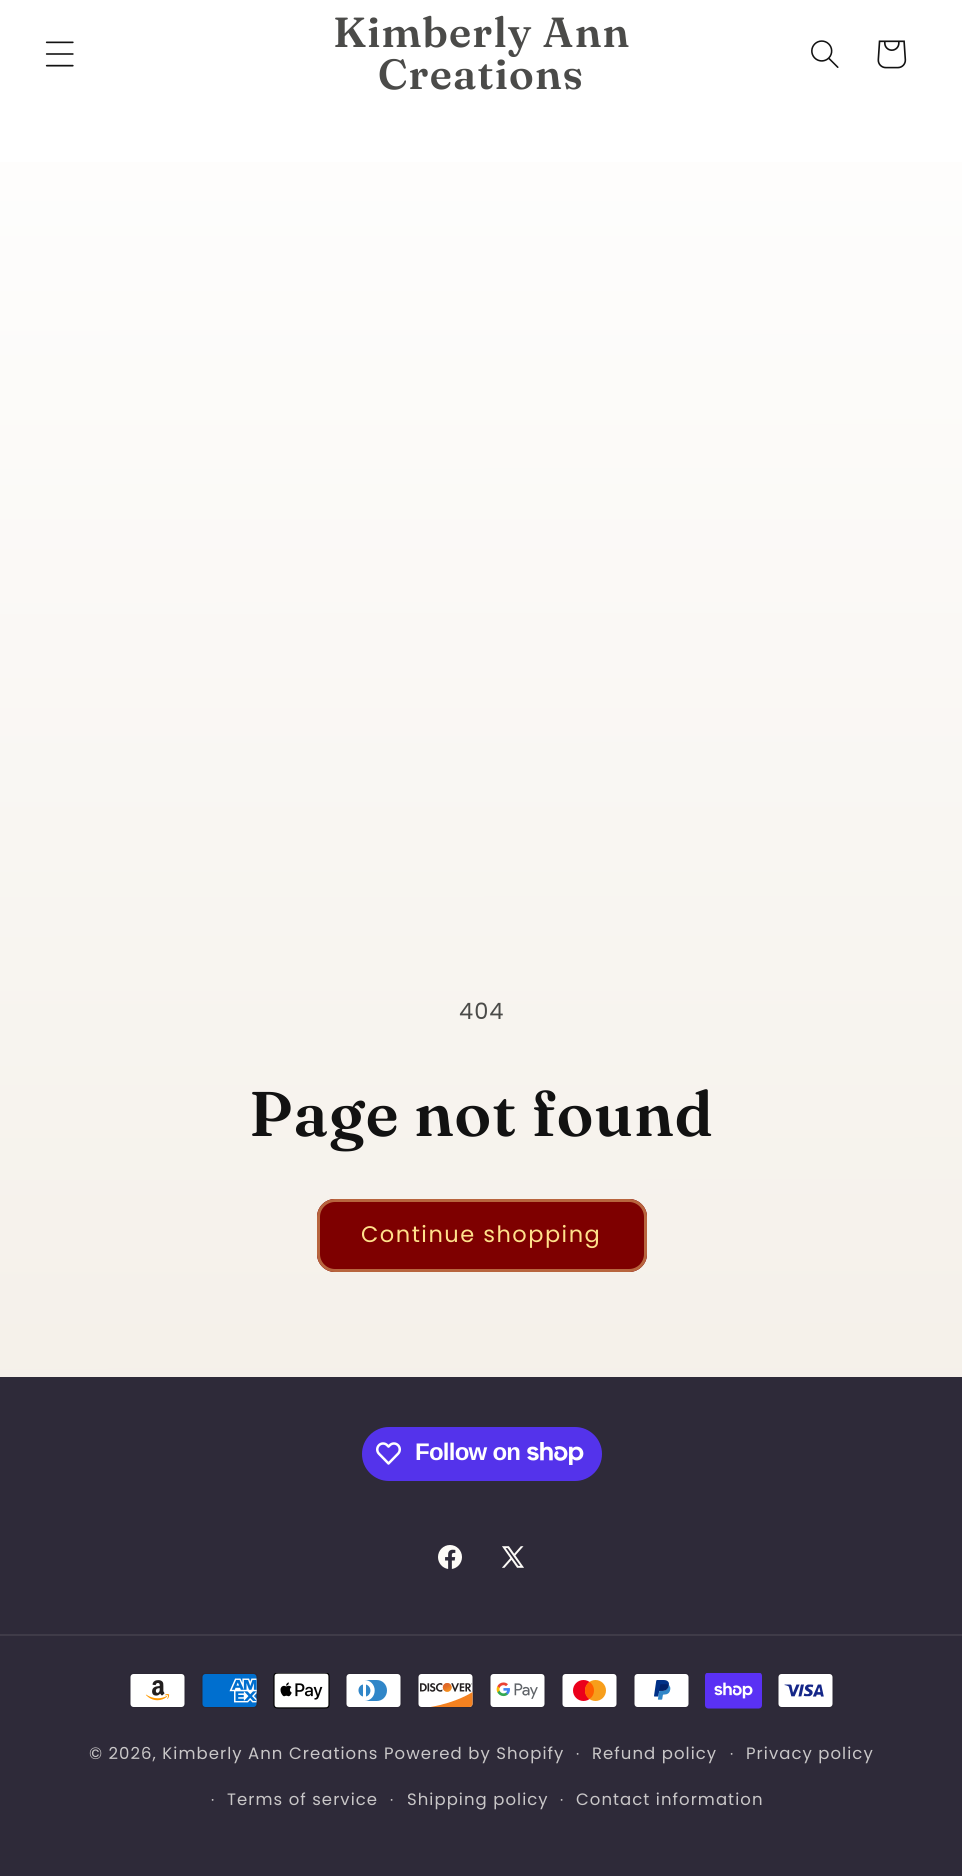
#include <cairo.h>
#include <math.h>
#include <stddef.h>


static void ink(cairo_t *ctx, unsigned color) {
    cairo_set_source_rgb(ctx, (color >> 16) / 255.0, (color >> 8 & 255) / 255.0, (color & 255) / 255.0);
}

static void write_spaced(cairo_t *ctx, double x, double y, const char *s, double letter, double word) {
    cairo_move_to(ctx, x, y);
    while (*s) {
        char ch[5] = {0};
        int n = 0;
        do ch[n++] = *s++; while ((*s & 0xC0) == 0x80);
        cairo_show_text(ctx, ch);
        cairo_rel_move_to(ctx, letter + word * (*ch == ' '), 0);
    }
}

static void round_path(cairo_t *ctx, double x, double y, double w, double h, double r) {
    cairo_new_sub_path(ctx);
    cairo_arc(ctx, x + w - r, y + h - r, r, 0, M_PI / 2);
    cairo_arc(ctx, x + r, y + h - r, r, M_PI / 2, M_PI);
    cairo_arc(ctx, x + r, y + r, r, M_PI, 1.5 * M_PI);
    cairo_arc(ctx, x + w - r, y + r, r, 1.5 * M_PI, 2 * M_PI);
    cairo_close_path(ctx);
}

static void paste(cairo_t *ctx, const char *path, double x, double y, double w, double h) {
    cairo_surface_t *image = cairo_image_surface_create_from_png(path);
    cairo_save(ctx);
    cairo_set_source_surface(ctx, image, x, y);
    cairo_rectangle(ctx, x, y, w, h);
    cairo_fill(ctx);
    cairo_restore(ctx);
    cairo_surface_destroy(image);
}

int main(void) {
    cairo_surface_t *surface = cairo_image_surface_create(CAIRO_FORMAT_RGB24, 962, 1876);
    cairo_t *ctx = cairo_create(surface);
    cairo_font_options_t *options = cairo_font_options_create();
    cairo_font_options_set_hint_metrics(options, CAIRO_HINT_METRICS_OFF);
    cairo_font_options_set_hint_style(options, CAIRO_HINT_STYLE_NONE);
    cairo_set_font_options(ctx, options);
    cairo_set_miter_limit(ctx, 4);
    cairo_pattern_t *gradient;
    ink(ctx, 0xFFFFFF);
    cairo_paint(ctx);
    gradient = cairo_pattern_create_linear(481, 0, 482, 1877);
    cairo_pattern_add_color_stop_rgba(gradient, 0, 1, 1, 1, 1);
    cairo_pattern_add_color_stop_rgba(gradient, 1, 0.945, 0.922, 0.886, 1);
    cairo_set_source(ctx, gradient);
    cairo_pattern_destroy(gradient);
    cairo_rectangle(ctx, 0, 162, 962, 1215);
    cairo_fill(ctx);
    paste(ctx, "media/1.png", 45, 41, 29, 26);
    cairo_select_font_face(ctx, "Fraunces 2 SemiBold", CAIRO_FONT_SLANT_NORMAL, CAIRO_FONT_WEIGHT_NORMAL);
    cairo_set_font_size(ctx, 42);
    ink(ctx, 0x4B4B49);
    write_spaced(ctx, 333, 47, "Kimberly Ann", 1.25, 0);
    write_spaced(ctx, 378, 89, "Creations", 1.25, 0);
    paste(ctx, "media/2.png", 811, 40, 28, 28);
    paste(ctx, "media/3.png", 877, 40, 30, 29);
    cairo_select_font_face(ctx, "Poppins", CAIRO_FONT_SLANT_NORMAL, CAIRO_FONT_WEIGHT_NORMAL);
    cairo_set_font_size(ctx, 22.5);
    write_spaced(ctx, 459, 1019, "404", 1, 0);
    cairo_select_font_face(ctx, "Fraunces SemiBold", CAIRO_FONT_SLANT_NORMAL, CAIRO_FONT_WEIGHT_NORMAL);
    cairo_set_font_size(ctx, 63);
    ink(ctx, 0x121212);
    write_spaced(ctx, 249, 1136, "Page not found", 1.25, 0);
    ink(ctx, 0x7E0000);
    round_path(ctx, 317, 1199, 330, 73, 18);
    cairo_fill(ctx);
    round_path(ctx, 318.5, 1200.5, 327, 70, 16.5);
    cairo_set_line_width(ctx, 3);
    cairo_stroke(ctx);
    round_path(ctx, 318.5, 1200.5, 327, 70, 16.5);
    cairo_set_source_rgba(ctx, 1, 0.882, 0.545, 0.45);
    cairo_stroke(ctx);
    cairo_select_font_face(ctx, "Poppins", CAIRO_FONT_SLANT_NORMAL, CAIRO_FONT_WEIGHT_NORMAL);
    cairo_set_font_size(ctx, 22.5);
    ink(ctx, 0xFFE18B);
    write_spaced(ctx, 361, 1242, "Continue shopping", 1.5, 0);
    ink(ctx, 0x2E2A39);
    cairo_rectangle(ctx, 0, 1377, 962, 499);
    cairo_fill(ctx);
    ink(ctx, 0x5433EB);
    round_path(ctx, 362, 1427, 240, 54, 27);
    cairo_fill(ctx);
    paste(ctx, "media/4.png", 376, 1442, 25, 23);
    cairo_select_font_face(ctx, "Liberation Sans", CAIRO_FONT_SLANT_NORMAL, CAIRO_FONT_WEIGHT_BOLD);
    cairo_set_font_size(ctx, 24);
    ink(ctx, 0xFFFFFF);
    write_spaced(ctx, 415, 1460, "Follow on", -0.75, 0);
    paste(ctx, "media/5.png", 527, 1442, 57, 23);
    paste(ctx, "media/6.png", 438, 1545, 24, 24);
    paste(ctx, "media/7.png", 502, 1546, 22, 22);
    ink(ctx, 0x3F3B48);
    cairo_rectangle(ctx, 0, 1634, 962, 2);
    cairo_fill(ctx);
    paste(ctx, "media/8.png", 129, 1673, 57, 35);
    paste(ctx, "media/9.png", 201, 1673, 57, 35);
    paste(ctx, "media/10.png", 273, 1673, 57, 36);
    paste(ctx, "media/11.png", 345, 1673, 57, 35);
    paste(ctx, "media/12.png", 417, 1673, 57, 35);
    paste(ctx, "media/13.png", 489, 1673, 57, 35);
    paste(ctx, "media/14.png", 561, 1673, 57, 35);
    paste(ctx, "media/15.png", 633, 1673, 57, 35);
    paste(ctx, "media/16.png", 705, 1673, 57, 36);
    paste(ctx, "media/17.png", 777, 1673, 57, 35);
    cairo_select_font_face(ctx, "Poppins", CAIRO_FONT_SLANT_NORMAL, CAIRO_FONT_WEIGHT_NORMAL);
    cairo_set_font_size(ctx, 16.5);
    ink(ctx, 0xC9C7C8);
    write_spaced(ctx, 89, 1759, "© 2026, Kimberly Ann Creations", 1.05, 0);
    cairo_set_font_size(ctx, 15);
    write_spaced(ctx, 576, 1759, "·", 1.05, 0);
    cairo_set_font_size(ctx, 16.5);
    write_spaced(ctx, 592, 1759, "Refund policy", 1.05, 0);
    cairo_set_font_size(ctx, 15);
    write_spaced(ctx, 730, 1759, "·", 1.05, 0);
    cairo_set_font_size(ctx, 16.5);
    write_spaced(ctx, 746, 1759, "Privacy policy", 1.05, 0);
    cairo_set_font_size(ctx, 15);
    write_spaced(ctx, 211, 1805, "·", 1.05, 0);
    cairo_set_font_size(ctx, 16.5);
    write_spaced(ctx, 227, 1805, "Terms of service", 1.05, 0);
    cairo_set_font_size(ctx, 15);
    write_spaced(ctx, 390, 1805, "·", 1.05, 0);
    cairo_set_font_size(ctx, 16.5);
    write_spaced(ctx, 407, 1805, "Shipping policy", 1.05, 0);
    cairo_set_font_size(ctx, 15);
    write_spaced(ctx, 560, 1805, "·", 1.05, 0);
    cairo_set_font_size(ctx, 16.5);
    write_spaced(ctx, 576, 1805, "Contact information", 1.05, 0);
    write_spaced(ctx, 384, 1759, "Powered by Shopify", 1.05, 0);
    cairo_surface_write_to_png(surface, "image.png");
    cairo_font_options_destroy(options);
    cairo_destroy(ctx);
    cairo_surface_destroy(surface);
    return 0;
}
